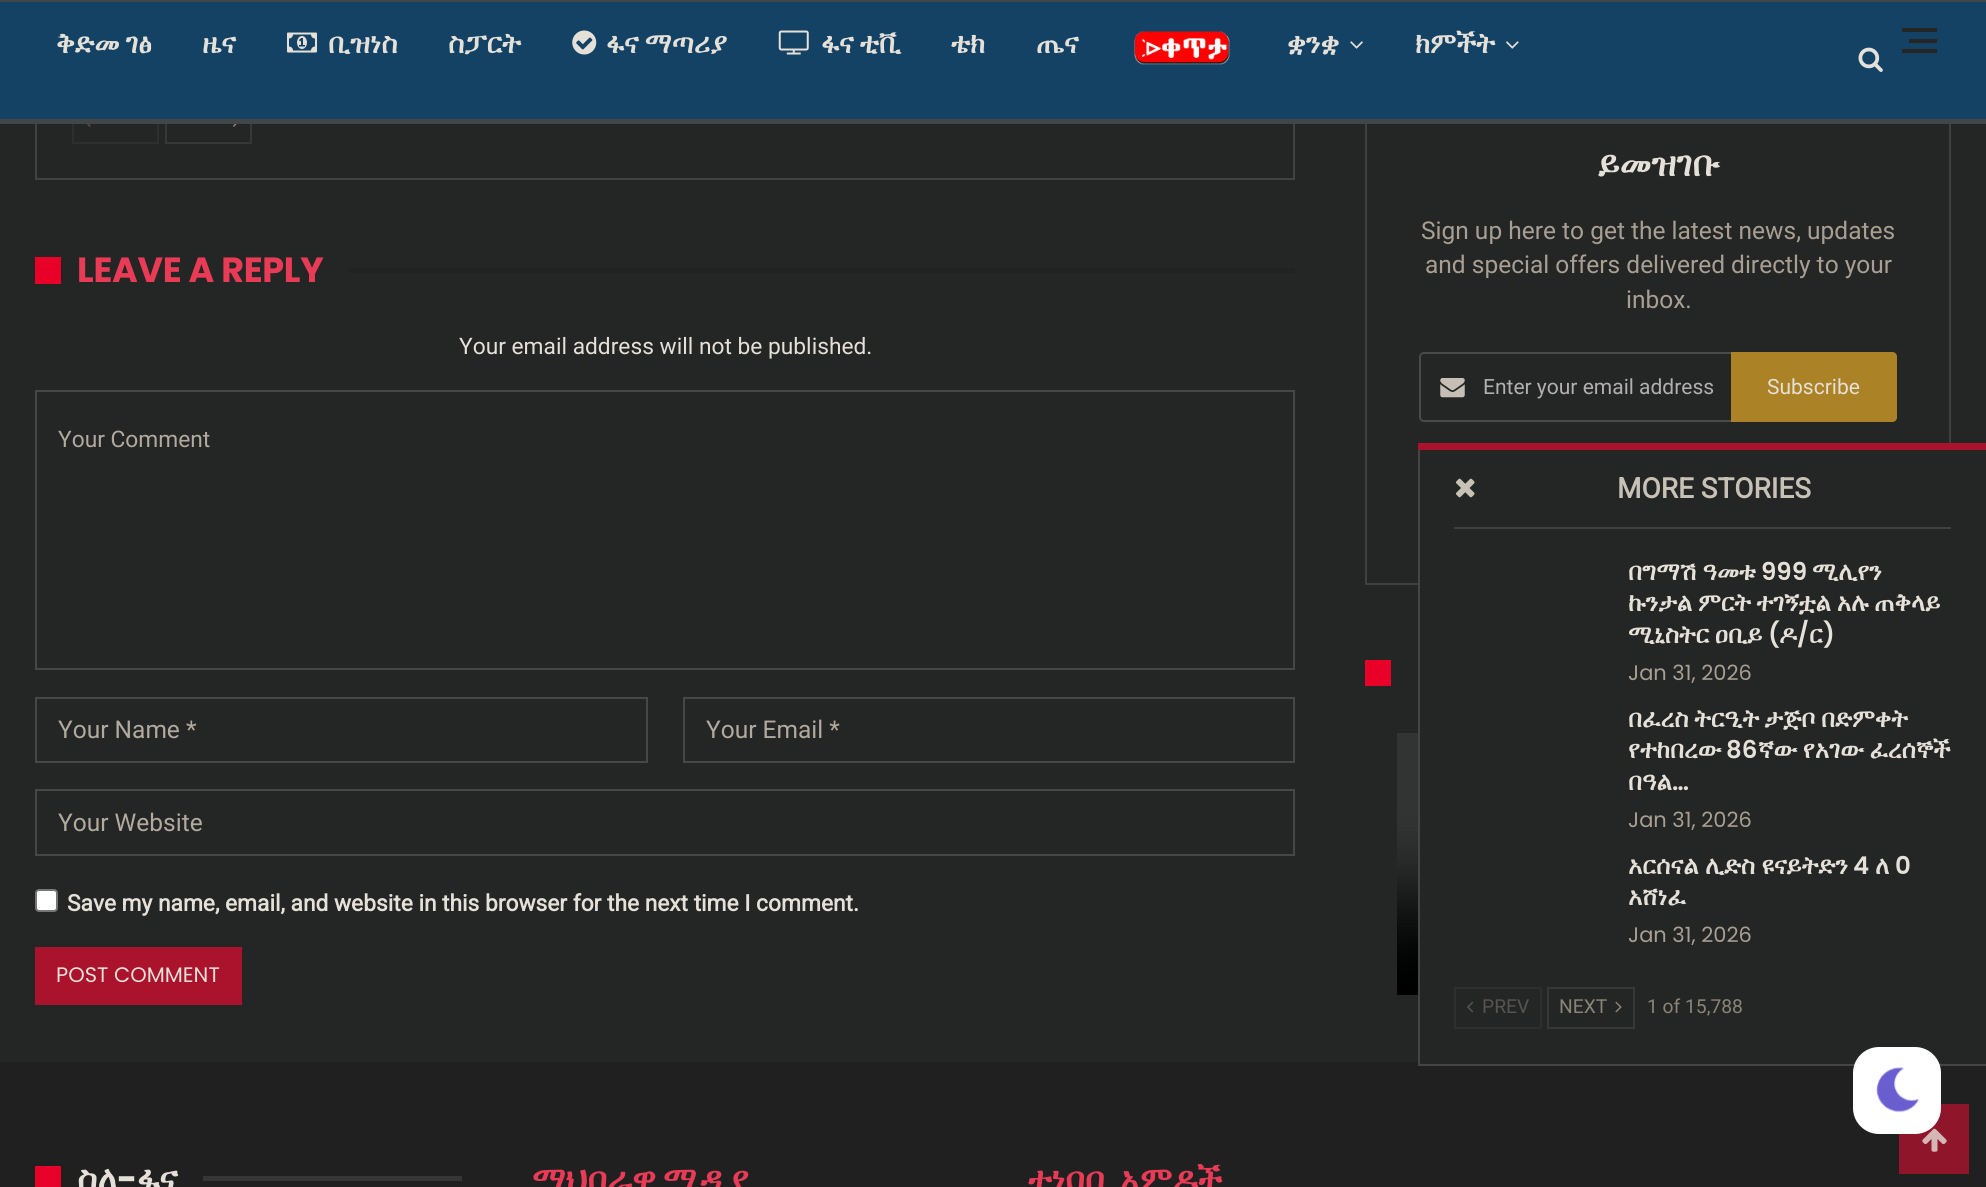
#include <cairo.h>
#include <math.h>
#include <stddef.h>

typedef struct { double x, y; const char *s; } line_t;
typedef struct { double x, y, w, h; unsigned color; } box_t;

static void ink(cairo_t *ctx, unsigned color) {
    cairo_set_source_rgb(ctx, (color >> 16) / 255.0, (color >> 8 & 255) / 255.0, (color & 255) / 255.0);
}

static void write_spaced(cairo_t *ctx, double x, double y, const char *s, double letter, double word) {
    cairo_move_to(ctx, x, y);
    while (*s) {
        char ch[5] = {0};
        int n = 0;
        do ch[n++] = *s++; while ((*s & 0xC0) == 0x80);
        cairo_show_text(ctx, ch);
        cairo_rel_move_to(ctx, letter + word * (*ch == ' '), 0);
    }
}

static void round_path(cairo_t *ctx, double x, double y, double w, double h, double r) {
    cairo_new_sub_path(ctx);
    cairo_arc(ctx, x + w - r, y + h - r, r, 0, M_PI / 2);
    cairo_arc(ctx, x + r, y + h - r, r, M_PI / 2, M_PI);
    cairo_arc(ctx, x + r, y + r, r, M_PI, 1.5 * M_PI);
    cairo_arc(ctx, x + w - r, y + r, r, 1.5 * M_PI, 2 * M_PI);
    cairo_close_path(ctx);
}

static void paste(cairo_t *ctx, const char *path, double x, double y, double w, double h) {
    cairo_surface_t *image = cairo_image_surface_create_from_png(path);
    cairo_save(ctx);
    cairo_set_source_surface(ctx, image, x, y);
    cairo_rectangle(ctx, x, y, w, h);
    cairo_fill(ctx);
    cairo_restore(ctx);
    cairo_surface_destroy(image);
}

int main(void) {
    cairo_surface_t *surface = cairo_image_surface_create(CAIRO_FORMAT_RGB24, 1986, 1187);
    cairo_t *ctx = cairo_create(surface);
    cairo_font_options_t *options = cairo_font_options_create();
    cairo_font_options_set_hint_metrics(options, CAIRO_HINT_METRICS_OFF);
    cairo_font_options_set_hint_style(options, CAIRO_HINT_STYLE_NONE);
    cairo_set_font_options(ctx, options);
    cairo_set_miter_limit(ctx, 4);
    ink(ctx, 0x242525);
    cairo_paint(ctx);
    cairo_rectangle(ctx, 36, -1, 1258, 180);
    ink(ctx, 0x404343);
    cairo_stroke(ctx);
    cairo_rectangle(ctx, 73, 103, 85, 40);
    ink(ctx, 0x2D2F2F);
    cairo_stroke(ctx);
    cairo_rectangle(ctx, 166, 103, 85, 40);
    ink(ctx, 0x353838);
    cairo_stroke(ctx);
    cairo_rectangle(ctx, 1366, -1, 584, 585);
    ink(ctx, 0x3F4141);
    cairo_stroke(ctx);
    {
        static const box_t items[] = {
            {0, 2, 1986, 117, 0x134265},
            {0, 0, 1986, 2, 0x434646},
            {0, 119, 1986, 5, 0x434646},
        };
        for (size_t i = 0; i < sizeof items / sizeof *items; i++) {
            ink(ctx, items[i].color);
            cairo_rectangle(ctx, items[i].x, items[i].y, items[i].w, items[i].h);
            cairo_fill(ctx);
        }
    }
    cairo_select_font_face(ctx, "FreeSerif", CAIRO_FONT_SLANT_NORMAL, CAIRO_FONT_WEIGHT_BOLD);
    cairo_set_font_size(ctx, 28);
    ink(ctx, 0xE5E0D8);
    write_spaced(ctx, 56, 53, "ቅድመ ገፅ", 0, -1);
    cairo_move_to(ctx, 202, 53);
    cairo_show_text(ctx, "ዜና");
    paste(ctx, "media/1.png", 287, 32, 30, 21);
    cairo_move_to(ctx, 328, 53);
    cairo_show_text(ctx, "ቢዝነስ");
    cairo_move_to(ctx, 448, 53);
    cairo_show_text(ctx, "ስፓርት");
    paste(ctx, "media/2.png", 572, 30, 25, 25);
    write_spaced(ctx, 606, 53, "ፋና ማጣሪያ", 0, -1);
    paste(ctx, "media/3.png", 778, 30, 31, 25);
    write_spaced(ctx, 821, 53, "ፋና ቲቪ", 0, -1);
    cairo_move_to(ctx, 951, 53);
    cairo_show_text(ctx, "ቴክ");
    cairo_move_to(ctx, 1036, 53);
    cairo_show_text(ctx, "ጤና");
    paste(ctx, "media/4.png", 1134, 31, 96, 34);
    cairo_move_to(ctx, 1287, 53);
    cairo_show_text(ctx, "ቋንቋ");
    paste(ctx, "media/5.png", 1350, 41, 13, 8);
    cairo_move_to(ctx, 1415, 53);
    cairo_show_text(ctx, "ክምችት");
    paste(ctx, "media/6.png", 1506, 41, 13, 8);
    {
        static const box_t items[] = {
            {1909, 39, 28, 4, 0x242525},
            {1902, 28, 35, 4, 0x242525},
            {1902, 49, 35, 4, 0x242525},
        };
        for (size_t i = 0; i < sizeof items / sizeof *items; i++) {
            ink(ctx, items[i].color);
            cairo_rectangle(ctx, items[i].x, items[i].y, items[i].w, items[i].h);
            cairo_fill(ctx);
        }
    }
    paste(ctx, "media/7.png", 1858, 47, 25, 25);
    paste(ctx, "media/8.png", 87, 124, 4, 3);
    paste(ctx, "media/9.png", 233, 124, 4, 3);
    ink(ctx, 0xE80028);
    cairo_rectangle(ctx, 35, 257, 26, 27);
    cairo_fill(ctx);
    cairo_select_font_face(ctx, "Poppins", CAIRO_FONT_SLANT_NORMAL, CAIRO_FONT_WEIGHT_BOLD);
    cairo_set_font_size(ctx, 35);
    ink(ctx, 0xE93B55);
    write_spaced(ctx, 77, 282, "LEAVE A REPLY", -0.3, 0);
    ink(ctx, 0x212222);
    cairo_rectangle(ctx, 348, 268, 947, 5);
    cairo_fill(ctx);
    cairo_select_font_face(ctx, "Roboto", CAIRO_FONT_SLANT_NORMAL, CAIRO_FONT_WEIGHT_NORMAL);
    cairo_set_font_size(ctx, 22.75);
    ink(ctx, 0xE5E0D8);
    cairo_move_to(ctx, 459, 354);
    cairo_show_text(ctx, "Your email address will not be published.");
    cairo_rectangle(ctx, 36, 391, 1258, 278);
    ink(ctx, 0x454847);
    cairo_stroke(ctx);
    ink(ctx, 0xB2AA9E);
    cairo_move_to(ctx, 58, 447);
    cairo_show_text(ctx, "Your Comment");
    cairo_rectangle(ctx, 36, 698, 611, 64);
    ink(ctx, 0x454847);
    cairo_stroke(ctx);
    cairo_set_font_size(ctx, 24.5);
    ink(ctx, 0xB2AA9E);
    cairo_move_to(ctx, 58, 738);
    cairo_show_text(ctx, "Your Name *");
    cairo_rectangle(ctx, 684, 698, 610, 64);
    ink(ctx, 0x454847);
    cairo_stroke(ctx);
    ink(ctx, 0xB2AA9E);
    cairo_move_to(ctx, 706, 738);
    cairo_show_text(ctx, "Your Email *");
    cairo_rectangle(ctx, 36, 790, 1258, 65);
    ink(ctx, 0x454847);
    cairo_stroke(ctx);
    ink(ctx, 0xB2AA9E);
    cairo_move_to(ctx, 58, 831);
    cairo_show_text(ctx, "Your Website");
    ink(ctx, 0xFFFFFF);
    round_path(ctx, 36, 890, 21, 21, 3);
    cairo_fill_preserve(ctx);
    ink(ctx, 0x767676);
    cairo_stroke(ctx);
    cairo_select_font_face(ctx, "Roboto", CAIRO_FONT_SLANT_NORMAL, CAIRO_FONT_WEIGHT_BOLD);
    cairo_set_font_size(ctx, 22.75);
    ink(ctx, 0xE5E0D8);
    cairo_move_to(ctx, 67, 911);
    cairo_show_text(ctx, "Save my name, email, and website in this browser for the next time I comment.");
    ink(ctx, 0xAB132C);
    cairo_rectangle(ctx, 35, 947, 207, 58);
    cairo_fill(ctx);
    cairo_select_font_face(ctx, "Poppins", CAIRO_FONT_SLANT_NORMAL, CAIRO_FONT_WEIGHT_NORMAL);
    cairo_set_font_size(ctx, 21);
    ink(ctx, 0xE5E0D8);
    cairo_move_to(ctx, 56, 982);
    cairo_show_text(ctx, "POST COMMENT");
    cairo_select_font_face(ctx, "FreeSerif", CAIRO_FONT_SLANT_NORMAL, CAIRO_FONT_WEIGHT_BOLD);
    cairo_set_font_size(ctx, 35);
    cairo_move_to(ctx, 1598, 176);
    cairo_show_text(ctx, "ይመዝገቡ");
    cairo_select_font_face(ctx, "Roboto", CAIRO_FONT_SLANT_NORMAL, CAIRO_FONT_WEIGHT_NORMAL);
    cairo_set_font_size(ctx, 24.5);
    ink(ctx, 0xA89F92);
    {
        static const line_t items[] = {
            {1421, 239, "Sign up here to get the latest news, updates"},
            {1425, 273, "and special offers delivered directly to your"},
            {1626, 308, "inbox."},
        };
        for (size_t i = 0; i < sizeof items / sizeof *items; i++) {
            cairo_move_to(ctx, items[i].x, items[i].y);
            cairo_show_text(ctx, items[i].s);
        }
    }
    round_path(ctx, 1420, 353, 476, 68, 4);
    ink(ctx, 0x484B4B);
    cairo_stroke(ctx);
    paste(ctx, "media/10.png", 1440, 378, 25, 20);
    cairo_set_font_size(ctx, 21);
    ink(ctx, 0xB1AFAF);
    cairo_move_to(ctx, 1483, 394);
    cairo_show_text(ctx, "Enter your email address");
    ink(ctx, 0xAC8226);
    cairo_new_path(ctx);
    cairo_move_to(ctx, 1731, 352);
    cairo_line_to(ctx, 1892, 352);
    cairo_curve_to(ctx, 1895, 352, 1897, 354, 1897, 357);
    cairo_line_to(ctx, 1897, 417);
    cairo_curve_to(ctx, 1897, 420, 1895, 422, 1892, 422);
    cairo_line_to(ctx, 1731, 422);
    cairo_close_path(ctx);
    cairo_fill(ctx);
    ink(ctx, 0xE5E0D8);
    cairo_move_to(ctx, 1767, 394);
    cairo_show_text(ctx, "Subscribe");
    ink(ctx, 0xE80028);
    cairo_rectangle(ctx, 1365, 660, 26, 26);
    cairo_fill(ctx);
    paste(ctx, "media/11.png", 1397, 733, 21, 262);
    {
        static const box_t items[] = {
            {0, 1062, 1986, 125, 0x202020},
            {1420, 450, 566, 614, 0x242525},
            {1418, 1064, 568, 2, 0x444646},
            {1418, 448, 2, 618, 0x444646},
            {1418, 443, 568, 7, 0xAB132C},
            {1454, 527, 497, 2, 0x3E4141},
        };
        for (size_t i = 0; i < sizeof items / sizeof *items; i++) {
            ink(ctx, items[i].color);
            cairo_rectangle(ctx, items[i].x, items[i].y, items[i].w, items[i].h);
            cairo_fill(ctx);
        }
    }
    paste(ctx, "media/12.png", 1456, 478, 19, 20);
    cairo_select_font_face(ctx, "Roboto", CAIRO_FONT_SLANT_NORMAL, CAIRO_FONT_WEIGHT_BOLD);
    cairo_set_font_size(ctx, 28);
    ink(ctx, 0xC8C1B6);
    cairo_move_to(ctx, 1617, 498);
    cairo_show_text(ctx, "MORE STORIES");
    cairo_select_font_face(ctx, "FreeSerif", CAIRO_FONT_SLANT_NORMAL, CAIRO_FONT_WEIGHT_BOLD);
    cairo_set_font_size(ctx, 24.5);
    ink(ctx, 0xE5E0D8);
    cairo_move_to(ctx, 1628, 580);
    cairo_show_text(ctx, "በግማሽ ዓመቱ");
    cairo_select_font_face(ctx, "Poppins SemiBold", CAIRO_FONT_SLANT_NORMAL, CAIRO_FONT_WEIGHT_NORMAL);
    cairo_move_to(ctx, 1761, 580);
    cairo_show_text(ctx, "999");
    cairo_select_font_face(ctx, "FreeSerif", CAIRO_FONT_SLANT_NORMAL, CAIRO_FONT_WEIGHT_BOLD);
    cairo_move_to(ctx, 1812, 580);
    cairo_show_text(ctx, "ሚሊየን");
    write_spaced(ctx, 1628, 611, "ኩንታል ምርት ተገኝቷል አሉ ጠቅላይ", 0, -0.5);
    write_spaced(ctx, 1628, 643, "ሚኒስትር ዐቢይ", 0, -0.5);
    cairo_select_font_face(ctx, "Poppins SemiBold", CAIRO_FONT_SLANT_NORMAL, CAIRO_FONT_WEIGHT_NORMAL);
    cairo_move_to(ctx, 1768, 643);
    cairo_show_text(ctx, "(");
    cairo_select_font_face(ctx, "FreeSerif", CAIRO_FONT_SLANT_NORMAL, CAIRO_FONT_WEIGHT_BOLD);
    cairo_move_to(ctx, 1779, 643);
    cairo_show_text(ctx, "ዶ");
    cairo_select_font_face(ctx, "Poppins SemiBold", CAIRO_FONT_SLANT_NORMAL, CAIRO_FONT_WEIGHT_NORMAL);
    cairo_move_to(ctx, 1797, 643);
    cairo_show_text(ctx, "/");
    cairo_select_font_face(ctx, "FreeSerif", CAIRO_FONT_SLANT_NORMAL, CAIRO_FONT_WEIGHT_BOLD);
    cairo_move_to(ctx, 1809, 643);
    cairo_show_text(ctx, "ር");
    cairo_select_font_face(ctx, "Poppins SemiBold", CAIRO_FONT_SLANT_NORMAL, CAIRO_FONT_WEIGHT_NORMAL);
    cairo_move_to(ctx, 1823, 643);
    cairo_show_text(ctx, ")");
    cairo_select_font_face(ctx, "Poppins", CAIRO_FONT_SLANT_NORMAL, CAIRO_FONT_WEIGHT_NORMAL);
    cairo_set_font_size(ctx, 21);
    ink(ctx, 0xA89F92);
    cairo_move_to(ctx, 1628, 680);
    cairo_show_text(ctx, "Jan 31, 2026");
    cairo_select_font_face(ctx, "FreeSerif", CAIRO_FONT_SLANT_NORMAL, CAIRO_FONT_WEIGHT_BOLD);
    cairo_set_font_size(ctx, 24.5);
    ink(ctx, 0xE5E0D8);
    write_spaced(ctx, 1628, 727, "በፈረስ ትርዒት ታጅቦ በድምቀት", 0, -0.5);
    cairo_move_to(ctx, 1628, 758);
    cairo_show_text(ctx, "የተከበረው");
    cairo_select_font_face(ctx, "Poppins SemiBold", CAIRO_FONT_SLANT_NORMAL, CAIRO_FONT_WEIGHT_NORMAL);
    cairo_move_to(ctx, 1726, 758);
    cairo_show_text(ctx, "86");
    cairo_select_font_face(ctx, "FreeSerif", CAIRO_FONT_SLANT_NORMAL, CAIRO_FONT_WEIGHT_BOLD);
    write_spaced(ctx, 1758, 758, "ኛው የአገው ፈረሰኞች", 0, -0.5);
    cairo_move_to(ctx, 1628, 790);
    cairo_show_text(ctx, "በዓል");
    cairo_select_font_face(ctx, "Poppins SemiBold", CAIRO_FONT_SLANT_NORMAL, CAIRO_FONT_WEIGHT_NORMAL);
    cairo_move_to(ctx, 1672, 790);
    cairo_show_text(ctx, "…");
    cairo_select_font_face(ctx, "Poppins", CAIRO_FONT_SLANT_NORMAL, CAIRO_FONT_WEIGHT_NORMAL);
    cairo_set_font_size(ctx, 21);
    ink(ctx, 0xA89F92);
    cairo_move_to(ctx, 1628, 827);
    cairo_show_text(ctx, "Jan 31, 2026");
    cairo_select_font_face(ctx, "FreeSerif", CAIRO_FONT_SLANT_NORMAL, CAIRO_FONT_WEIGHT_BOLD);
    cairo_set_font_size(ctx, 24.5);
    ink(ctx, 0xE5E0D8);
    cairo_move_to(ctx, 1628, 874);
    cairo_show_text(ctx, "አርሰናል ሊድስ ዩናይትድን");
    cairo_select_font_face(ctx, "Poppins SemiBold", CAIRO_FONT_SLANT_NORMAL, CAIRO_FONT_WEIGHT_NORMAL);
    cairo_move_to(ctx, 1853, 874);
    cairo_show_text(ctx, "4");
    cairo_select_font_face(ctx, "FreeSerif", CAIRO_FONT_SLANT_NORMAL, CAIRO_FONT_WEIGHT_BOLD);
    cairo_move_to(ctx, 1875, 874);
    cairo_show_text(ctx, "ለ");
    cairo_select_font_face(ctx, "Poppins SemiBold", CAIRO_FONT_SLANT_NORMAL, CAIRO_FONT_WEIGHT_NORMAL);
    cairo_move_to(ctx, 1895, 874);
    cairo_show_text(ctx, "0");
    cairo_select_font_face(ctx, "FreeSerif", CAIRO_FONT_SLANT_NORMAL, CAIRO_FONT_WEIGHT_BOLD);
    cairo_move_to(ctx, 1628, 905);
    cairo_show_text(ctx, "አሸነፈ");
    cairo_select_font_face(ctx, "Poppins", CAIRO_FONT_SLANT_NORMAL, CAIRO_FONT_WEIGHT_NORMAL);
    cairo_set_font_size(ctx, 21);
    ink(ctx, 0xA89F92);
    cairo_move_to(ctx, 1628, 942);
    cairo_show_text(ctx, "Jan 31, 2026");
    cairo_rectangle(ctx, 1455, 988, 86, 40);
    ink(ctx, 0x2D2F2F);
    cairo_stroke(ctx);
    paste(ctx, "media/13.png", 1467, 1001, 7, 12);
    cairo_select_font_face(ctx, "Roboto", CAIRO_FONT_SLANT_NORMAL, CAIRO_FONT_WEIGHT_NORMAL);
    cairo_set_font_size(ctx, 19.25);
    ink(ctx, 0x57544F);
    cairo_move_to(ctx, 1482, 1013);
    cairo_show_text(ctx, "PREV");
    cairo_rectangle(ctx, 1548, 988, 86, 40);
    ink(ctx, 0x353838);
    cairo_stroke(ctx);
    ink(ctx, 0x8A8477);
    cairo_move_to(ctx, 1559, 1013);
    cairo_show_text(ctx, "NEXT");
    paste(ctx, "media/14.png", 1615, 1001, 7, 12);
    cairo_move_to(ctx, 1647, 1013);
    cairo_show_text(ctx, "1 of 15,788");
    ink(ctx, 0xE80028);
    cairo_rectangle(ctx, 35, 1166, 26, 21);
    cairo_fill(ctx);
    cairo_select_font_face(ctx, "FreeSerif", CAIRO_FONT_SLANT_NORMAL, CAIRO_FONT_WEIGHT_BOLD);
    cairo_set_font_size(ctx, 35);
    ink(ctx, 0xE5E0D8);
    write_spaced(ctx, 77, 1191, "ስለ", -0.3, 0);
    cairo_select_font_face(ctx, "Poppins", CAIRO_FONT_SLANT_NORMAL, CAIRO_FONT_WEIGHT_BOLD);
    write_spaced(ctx, 117, 1191, "-", -0.3, 0);
    cairo_select_font_face(ctx, "FreeSerif", CAIRO_FONT_SLANT_NORMAL, CAIRO_FONT_WEIGHT_BOLD);
    write_spaced(ctx, 137, 1191, "ፋና", -0.3, 0);
    ink(ctx, 0x363636);
    cairo_rectangle(ctx, 203, 1176, 259, 5);
    cairo_fill(ctx);
    ink(ctx, 0xE93B55);
    write_spaced(ctx, 532, 1192, "ማህበራዊ ሚዲያ", -0.3, -1);
    write_spaced(ctx, 1028, 1192, "ተነባቢ አምዶች", -0.3, -1);
    ink(ctx, 0x8F162A);
    cairo_rectangle(ctx, 1899, 1104, 70, 70);
    cairo_fill(ctx);
    paste(ctx, "media/16.png", 1922, 1128, 25, 24);
    ink(ctx, 0xFFFFFF);
    round_path(ctx, 1853, 1047, 88, 87, 26);
    cairo_fill(ctx);
    paste(ctx, "media/15.png", 1876, 1067, 43, 46);
    cairo_surface_write_to_png(surface, "image.png");
    cairo_font_options_destroy(options);
    cairo_destroy(ctx);
    cairo_surface_destroy(surface);
    return 0;
}
